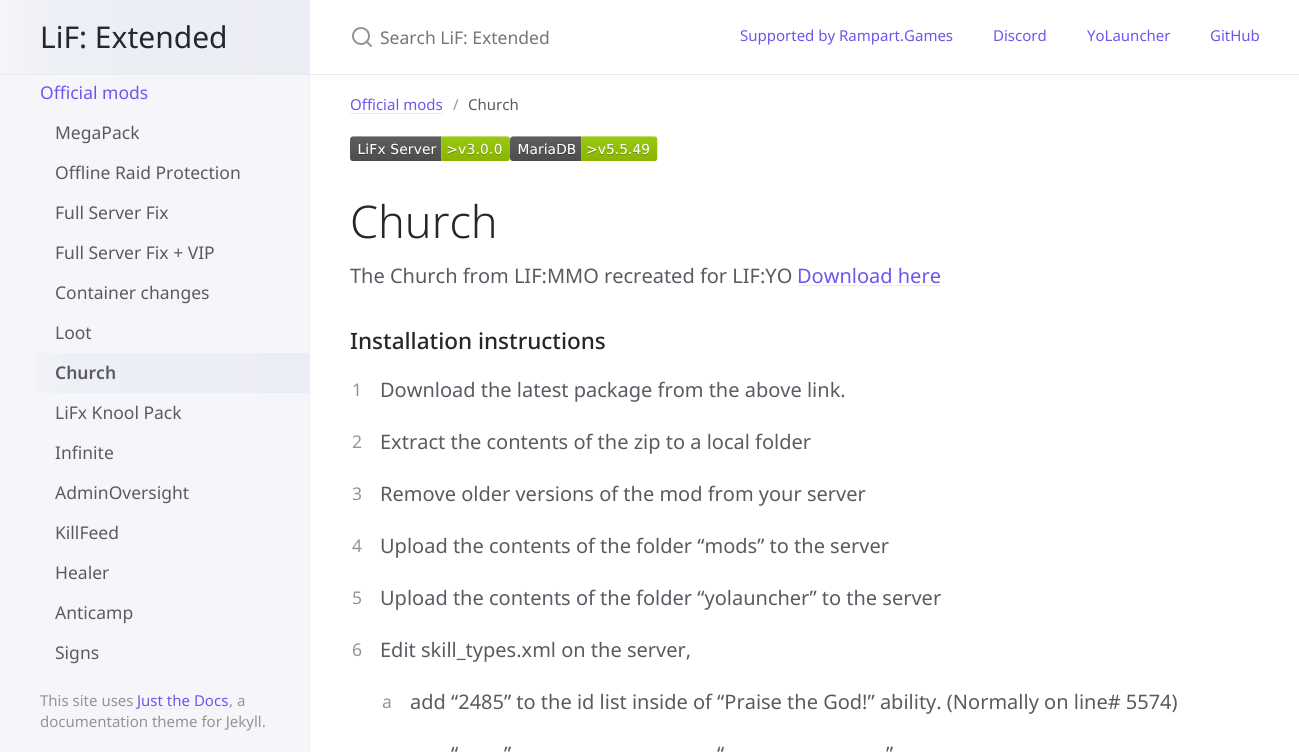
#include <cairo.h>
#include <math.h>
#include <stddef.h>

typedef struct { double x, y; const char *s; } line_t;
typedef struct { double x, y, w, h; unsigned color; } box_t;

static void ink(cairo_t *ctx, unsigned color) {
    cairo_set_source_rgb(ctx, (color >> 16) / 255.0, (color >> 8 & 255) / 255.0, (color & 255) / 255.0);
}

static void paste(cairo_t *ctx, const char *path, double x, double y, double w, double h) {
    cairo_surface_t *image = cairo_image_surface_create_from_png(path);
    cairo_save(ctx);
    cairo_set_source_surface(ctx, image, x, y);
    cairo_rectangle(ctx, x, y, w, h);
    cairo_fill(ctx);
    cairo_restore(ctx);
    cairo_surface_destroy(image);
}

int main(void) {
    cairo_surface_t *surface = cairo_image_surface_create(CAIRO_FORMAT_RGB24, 1299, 752);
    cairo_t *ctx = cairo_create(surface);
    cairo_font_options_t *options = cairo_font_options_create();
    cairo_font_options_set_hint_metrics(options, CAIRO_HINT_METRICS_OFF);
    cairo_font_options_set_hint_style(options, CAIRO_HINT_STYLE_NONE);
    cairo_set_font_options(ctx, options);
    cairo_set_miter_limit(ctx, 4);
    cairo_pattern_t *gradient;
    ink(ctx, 0xFFFFFF);
    cairo_paint(ctx);
    {
        static const box_t items[] = {
            {0, 75, 309, 677, 0xF5F6FA},
            {309, 0, 1, 752, 0xEEEBEE},
            {0, 74, 309, 1, 0xEEEBEE},
        };
        for (size_t i = 0; i < sizeof items / sizeof *items; i++) {
            ink(ctx, items[i].color);
            cairo_rectangle(ctx, items[i].x, items[i].y, items[i].w, items[i].h);
            cairo_fill(ctx);
        }
    }
    gradient = cairo_pattern_create_linear(309, 37, 0, 37);
    cairo_pattern_add_color_stop_rgba(gradient, 0, 0.922, 0.929, 0.961, 1);
    cairo_pattern_add_color_stop_rgba(gradient, 0.8, 0.929, 0.937, 0.965, 1);
    cairo_pattern_add_color_stop_rgba(gradient, 1, 0.961, 0.965, 0.98, 1);
    cairo_set_source(ctx, gradient);
    cairo_pattern_destroy(gradient);
    cairo_rectangle(ctx, 0, 0, 309, 74);
    cairo_fill(ctx);
    cairo_select_font_face(ctx, "Noto Sans", CAIRO_FONT_SLANT_NORMAL, CAIRO_FONT_WEIGHT_NORMAL);
    cairo_set_font_size(ctx, 30);
    ink(ctx, 0x27262B);
    cairo_move_to(ctx, 40, 48);
    cairo_show_text(ctx, "LiF: Extended");
    cairo_set_font_size(ctx, 17.5);
    ink(ctx, 0x7253ED);
    cairo_move_to(ctx, 40, 99);
    cairo_show_text(ctx, "Official mods");
    ink(ctx, 0x5C5962);
    {
        static const line_t items[] = {
            {55, 139, "MegaPack"},
            {55, 179, "Offline Raid Protection"},
            {55, 219, "Full Server Fix"},
            {55, 259, "Full Server Fix + VIP"},
            {55, 299, "Container changes"},
            {55, 339, "Loot"},
        };
        for (size_t i = 0; i < sizeof items / sizeof *items; i++) {
            cairo_move_to(ctx, items[i].x, items[i].y);
            cairo_show_text(ctx, items[i].s);
        }
    }
    gradient = cairo_pattern_create_linear(309, 373, 15, 373);
    cairo_pattern_add_color_stop_rgba(gradient, 0, 0.922, 0.929, 0.961, 1);
    cairo_pattern_add_color_stop_rgba(gradient, 0.8, 0.929, 0.937, 0.965, 1);
    cairo_pattern_add_color_stop_rgba(gradient, 1, 0.961, 0.965, 0.98, 1);
    cairo_set_source(ctx, gradient);
    cairo_pattern_destroy(gradient);
    cairo_rectangle(ctx, 33, 353, 276, 40);
    cairo_fill(ctx);
    cairo_select_font_face(ctx, "Noto Sans SemiBold", CAIRO_FONT_SLANT_NORMAL, CAIRO_FONT_WEIGHT_NORMAL);
    ink(ctx, 0x5C5962);
    cairo_move_to(ctx, 55, 379);
    cairo_show_text(ctx, "Church");
    cairo_select_font_face(ctx, "Noto Sans", CAIRO_FONT_SLANT_NORMAL, CAIRO_FONT_WEIGHT_NORMAL);
    {
        static const line_t items[] = {
            {55, 419, "LiFx Knool Pack"},
            {55, 459, "Infinite"},
            {55, 499, "AdminOversight"},
            {55, 539, "KillFeed"},
            {55, 579, "Healer"},
            {55, 619, "Anticamp"},
            {55, 659, "Signs"},
        };
        for (size_t i = 0; i < sizeof items / sizeof *items; i++) {
            cairo_move_to(ctx, items[i].x, items[i].y);
            cairo_show_text(ctx, items[i].s);
        }
    }
    cairo_set_font_size(ctx, 15);
    ink(ctx, 0x959396);
    cairo_move_to(ctx, 40, 706);
    cairo_show_text(ctx, "This site uses");
    ink(ctx, 0xEEEBEE);
    cairo_rectangle(ctx, 138, 708, 91, 1);
    cairo_fill(ctx);
    ink(ctx, 0x7253ED);
    cairo_move_to(ctx, 137, 706);
    cairo_show_text(ctx, "Just the Docs");
    ink(ctx, 0x959396);
    cairo_move_to(ctx, 229, 706);
    cairo_show_text(ctx, ", a");
    cairo_move_to(ctx, 40, 727);
    cairo_show_text(ctx, "documentation theme for Jekyll.");
    ink(ctx, 0xEEEBEE);
    cairo_rectangle(ctx, 310, 74, 989, 1);
    cairo_fill(ctx);
    cairo_arc(ctx, 361, 36, 8, 0, 2 * M_PI);
    ink(ctx, 0x959396);
    cairo_stroke(ctx);
    cairo_new_path(ctx);
    cairo_move_to(ctx, 371, 46);
    cairo_line_to(ctx, 366.5, 41.5);
    cairo_set_line_cap(ctx, CAIRO_LINE_CAP_ROUND);
    cairo_set_line_join(ctx, CAIRO_LINE_JOIN_ROUND);
    cairo_stroke(ctx);
    cairo_set_font_size(ctx, 17.5);
    ink(ctx, 0x757575);
    cairo_move_to(ctx, 380, 44);
    cairo_show_text(ctx, "Search LiF: Extended");
    cairo_set_font_size(ctx, 15);
    ink(ctx, 0x7253ED);
    {
        static const line_t items[] = {
            {740, 41, "Supported by Rampart.Games"},
            {993, 41, "Discord"},
            {1087, 41, "YoLauncher"},
            {1210, 41, "GitHub"},
            {350, 110, "Official mods"},
        };
        for (size_t i = 0; i < sizeof items / sizeof *items; i++) {
            cairo_move_to(ctx, items[i].x, items[i].y);
            cairo_show_text(ctx, items[i].s);
        }
    }
    ink(ctx, 0xEEEBEE);
    cairo_rectangle(ctx, 350, 113, 93, 1);
    cairo_fill(ctx);
    ink(ctx, 0x959396);
    cairo_move_to(ctx, 453, 110);
    cairo_show_text(ctx, "/");
    ink(ctx, 0x5C5962);
    cairo_move_to(ctx, 468, 110);
    cairo_show_text(ctx, "Church");
    paste(ctx, "media/1.png", 350, 136, 160, 25);
    paste(ctx, "media/2.png", 510, 136, 148, 25);
    cairo_select_font_face(ctx, "Noto Sans Light", CAIRO_FONT_SLANT_NORMAL, CAIRO_FONT_WEIGHT_NORMAL);
    cairo_set_font_size(ctx, 45);
    ink(ctx, 0x27262B);
    cairo_move_to(ctx, 350, 238);
    cairo_show_text(ctx, "Church");
    cairo_select_font_face(ctx, "Noto Sans", CAIRO_FONT_SLANT_NORMAL, CAIRO_FONT_WEIGHT_NORMAL);
    cairo_set_font_size(ctx, 20);
    ink(ctx, 0x5C5962);
    cairo_move_to(ctx, 350, 283);
    cairo_show_text(ctx, "The Church from LIF:MMO recreated for LIF:YO");
    ink(ctx, 0x7253ED);
    cairo_move_to(ctx, 797, 283);
    cairo_show_text(ctx, "Download here");
    ink(ctx, 0xEEEBEE);
    cairo_rectangle(ctx, 798, 285, 143, 1);
    cairo_fill(ctx);
    cairo_select_font_face(ctx, "Noto Sans Medium", CAIRO_FONT_SLANT_NORMAL, CAIRO_FONT_WEIGHT_NORMAL);
    cairo_set_font_size(ctx, 22.5);
    ink(ctx, 0x27262B);
    cairo_move_to(ctx, 350, 349);
    cairo_show_text(ctx, "Installation instructions");
    cairo_select_font_face(ctx, "Noto Sans", CAIRO_FONT_SLANT_NORMAL, CAIRO_FONT_WEIGHT_NORMAL);
    cairo_set_font_size(ctx, 17.5);
    ink(ctx, 0x959396);
    cairo_move_to(ctx, 352, 396);
    cairo_show_text(ctx, "1");
    cairo_set_font_size(ctx, 20);
    ink(ctx, 0x5C5962);
    cairo_move_to(ctx, 380, 397);
    cairo_show_text(ctx, "Download the latest package from the above link.");
    cairo_set_font_size(ctx, 17.5);
    ink(ctx, 0x959396);
    cairo_move_to(ctx, 352, 448);
    cairo_show_text(ctx, "2");
    cairo_set_font_size(ctx, 20);
    ink(ctx, 0x5C5962);
    cairo_move_to(ctx, 380, 449);
    cairo_show_text(ctx, "Extract the contents of the zip to a local folder");
    cairo_set_font_size(ctx, 17.5);
    ink(ctx, 0x959396);
    cairo_move_to(ctx, 352, 500);
    cairo_show_text(ctx, "3");
    cairo_set_font_size(ctx, 20);
    ink(ctx, 0x5C5962);
    cairo_move_to(ctx, 380, 501);
    cairo_show_text(ctx, "Remove older versions of the mod from your server");
    cairo_set_font_size(ctx, 17.5);
    ink(ctx, 0x959396);
    cairo_move_to(ctx, 352, 552);
    cairo_show_text(ctx, "4");
    cairo_set_font_size(ctx, 20);
    ink(ctx, 0x5C5962);
    cairo_move_to(ctx, 380, 553);
    cairo_show_text(ctx, "Upload the contents of the folder “mods” to the server");
    cairo_set_font_size(ctx, 17.5);
    ink(ctx, 0x959396);
    cairo_move_to(ctx, 352, 604);
    cairo_show_text(ctx, "5");
    cairo_set_font_size(ctx, 20);
    ink(ctx, 0x5C5962);
    cairo_move_to(ctx, 380, 605);
    cairo_show_text(ctx, "Upload the contents of the folder “yolauncher” to the server");
    cairo_set_font_size(ctx, 17.5);
    ink(ctx, 0x959396);
    cairo_move_to(ctx, 352, 656);
    cairo_show_text(ctx, "6");
    cairo_set_font_size(ctx, 20);
    ink(ctx, 0x5C5962);
    cairo_move_to(ctx, 380, 657);
    cairo_show_text(ctx, "Edit skill_types.xml on the server,");
    cairo_set_font_size(ctx, 17.5);
    ink(ctx, 0x959396);
    cairo_move_to(ctx, 382, 708);
    cairo_show_text(ctx, "a");
    cairo_set_font_size(ctx, 20);
    ink(ctx, 0x5C5962);
    {
        static const line_t items[] = {
            {410, 709, "add “2485” to the id list inside of “Praise the God!” ability. (Normally on line# 5574)"},
            {451, 761, "“"},
            {504, 761, "”"},
            {717, 761, "“"},
            {886, 761, "”"},
        };
        for (size_t i = 0; i < sizeof items / sizeof *items; i++) {
            cairo_move_to(ctx, items[i].x, items[i].y);
            cairo_show_text(ctx, items[i].s);
        }
    }
    cairo_surface_write_to_png(surface, "image.png");
    cairo_font_options_destroy(options);
    cairo_destroy(ctx);
    cairo_surface_destroy(surface);
    return 0;
}
